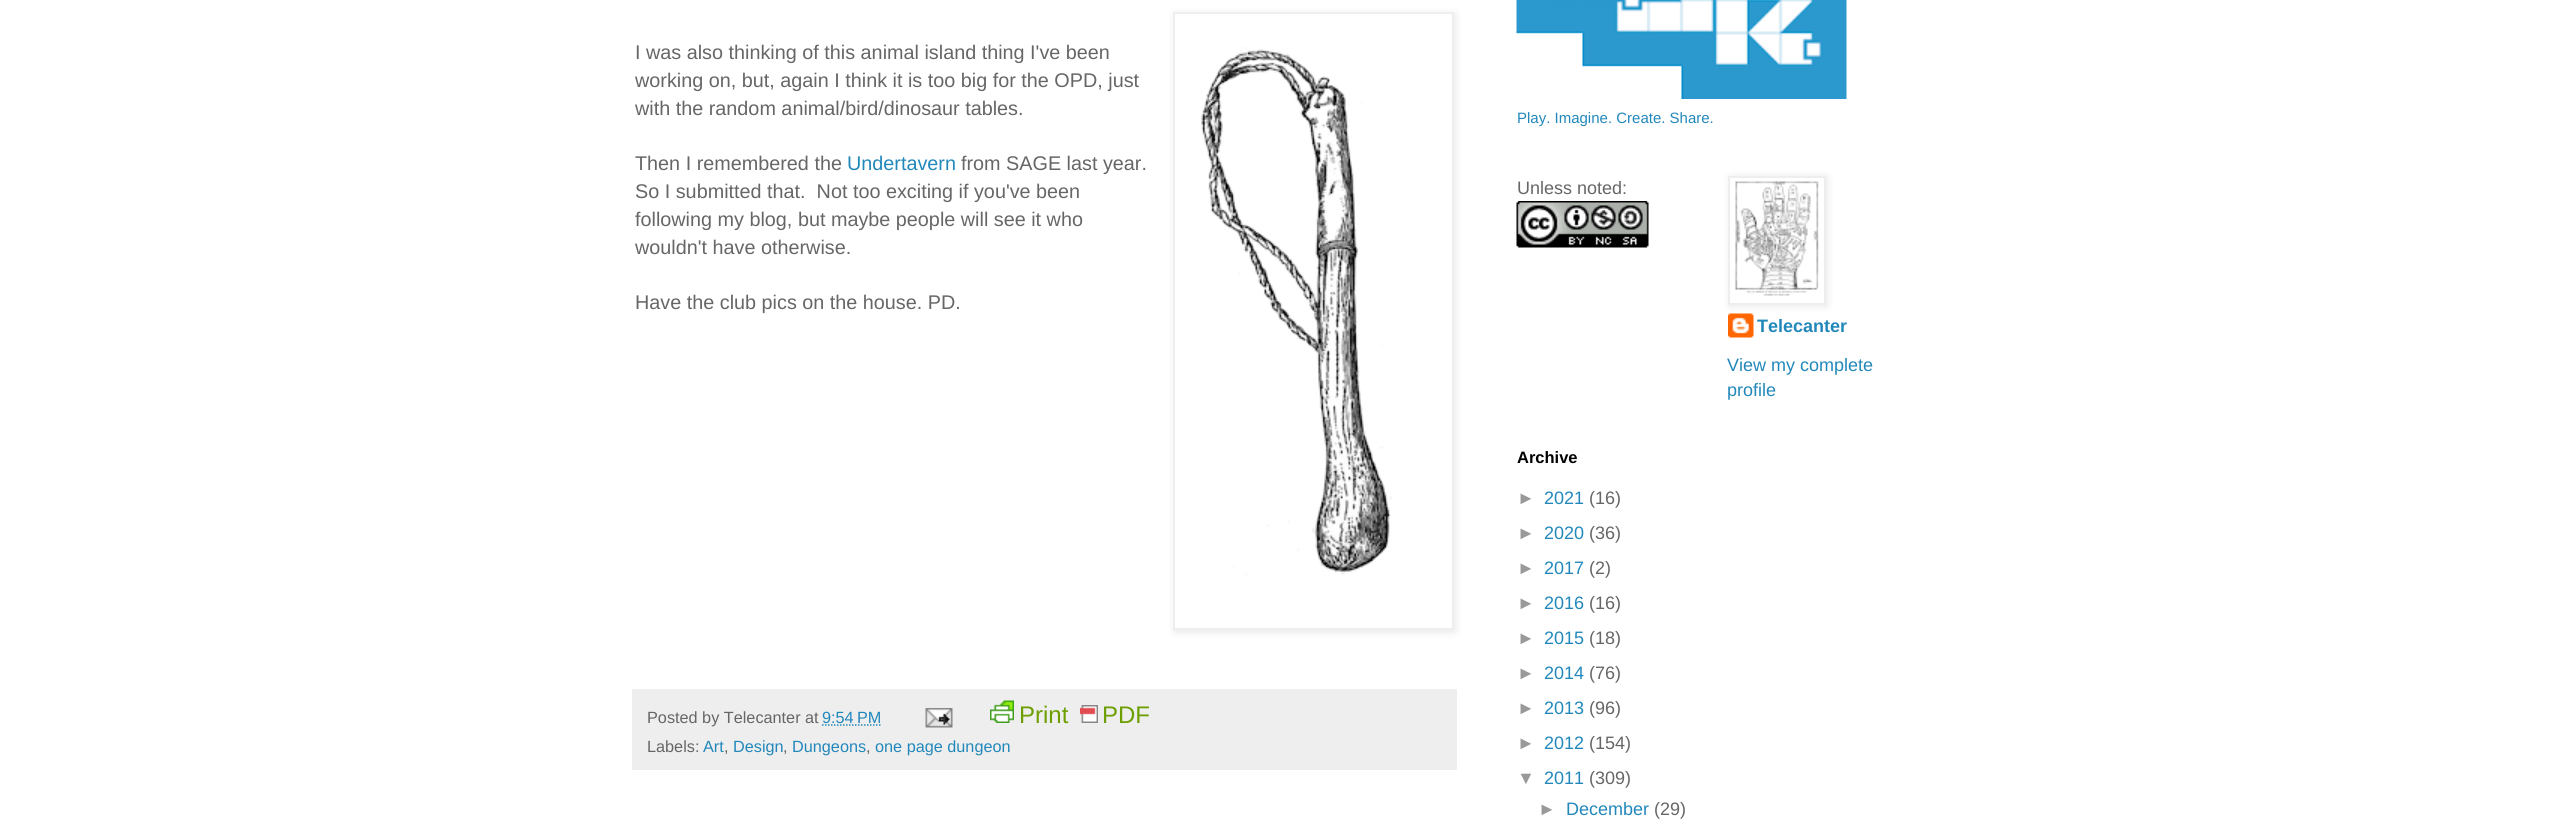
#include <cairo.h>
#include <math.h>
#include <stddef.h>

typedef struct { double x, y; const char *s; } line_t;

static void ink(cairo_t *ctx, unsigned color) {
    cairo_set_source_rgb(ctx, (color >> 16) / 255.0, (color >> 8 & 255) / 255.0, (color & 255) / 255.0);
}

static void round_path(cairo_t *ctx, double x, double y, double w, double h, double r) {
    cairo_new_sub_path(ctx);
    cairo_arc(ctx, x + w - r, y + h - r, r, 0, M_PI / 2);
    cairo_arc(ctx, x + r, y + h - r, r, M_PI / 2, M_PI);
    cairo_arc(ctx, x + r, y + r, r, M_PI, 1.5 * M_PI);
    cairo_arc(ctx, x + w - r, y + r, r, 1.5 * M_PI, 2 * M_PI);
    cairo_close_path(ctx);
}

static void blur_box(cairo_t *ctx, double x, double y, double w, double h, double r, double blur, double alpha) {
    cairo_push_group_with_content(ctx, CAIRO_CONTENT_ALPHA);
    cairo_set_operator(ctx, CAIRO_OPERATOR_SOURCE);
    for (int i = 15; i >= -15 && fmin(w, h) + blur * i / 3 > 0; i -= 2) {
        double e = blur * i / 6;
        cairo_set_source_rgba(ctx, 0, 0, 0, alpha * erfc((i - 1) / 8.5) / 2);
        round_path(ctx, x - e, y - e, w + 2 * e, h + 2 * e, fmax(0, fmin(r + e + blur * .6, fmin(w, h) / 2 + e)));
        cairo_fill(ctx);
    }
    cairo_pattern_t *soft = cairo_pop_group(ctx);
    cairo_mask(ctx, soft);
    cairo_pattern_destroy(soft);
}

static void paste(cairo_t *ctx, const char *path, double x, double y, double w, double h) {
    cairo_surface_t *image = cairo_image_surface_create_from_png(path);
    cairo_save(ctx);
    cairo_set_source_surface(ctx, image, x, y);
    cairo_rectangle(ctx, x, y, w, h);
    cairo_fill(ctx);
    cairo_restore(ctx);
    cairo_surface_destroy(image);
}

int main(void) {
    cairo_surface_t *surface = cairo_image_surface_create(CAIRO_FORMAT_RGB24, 2552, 829);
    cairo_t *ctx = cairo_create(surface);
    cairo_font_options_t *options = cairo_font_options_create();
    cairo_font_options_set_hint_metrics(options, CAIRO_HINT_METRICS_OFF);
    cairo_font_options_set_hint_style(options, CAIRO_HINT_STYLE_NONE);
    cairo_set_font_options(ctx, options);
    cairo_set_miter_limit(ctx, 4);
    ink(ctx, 0xFFFFFF);
    cairo_paint(ctx);
    cairo_select_font_face(ctx, "Liberation Sans", CAIRO_FONT_SLANT_NORMAL, CAIRO_FONT_WEIGHT_NORMAL);
    cairo_set_font_size(ctx, 19.8);
    ink(ctx, 0x666666);
    cairo_move_to(ctx, 635, 59);
    cairo_show_text(ctx, "I was also thinking of this animal island thing I've been");
    ink(ctx, 0x000000);
    blur_box(ctx, 1175, 14, 280, 618, 0, 4, 0.1);
    ink(ctx, 0xFFFFFF);
    cairo_rectangle(ctx, 1174, 13, 279, 616);
    cairo_fill_preserve(ctx);
    ink(ctx, 0xEEEEEE);
    cairo_stroke(ctx);
    paste(ctx, "media/1.png", 1201, 47, 191, 529);
    ink(ctx, 0x666666);
    {
        static const line_t items[] = {
            {635, 87, "working on, but, again I think it is too big for the OPD, just"},
            {635, 115, "with the random animal/bird/dinosaur tables."},
            {635, 170, "Then I remembered the"},
        };
        for (size_t i = 0; i < sizeof items / sizeof *items; i++) {
            cairo_move_to(ctx, items[i].x, items[i].y);
            cairo_show_text(ctx, items[i].s);
        }
    }
    ink(ctx, 0x2288BB);
    cairo_move_to(ctx, 847, 170);
    cairo_show_text(ctx, "Undertavern");
    ink(ctx, 0x666666);
    {
        static const line_t items[] = {
            {961, 170, "from SAGE last year."},
            {635, 198, "So I submitted that.  Not too exciting if you've been"},
            {635, 226, "following my blog, but maybe people will see it who"},
            {635, 254, "wouldn't have otherwise."},
            {635, 309, "Have the club pics on the house. PD."},
        };
        for (size_t i = 0; i < sizeof items / sizeof *items; i++) {
            cairo_move_to(ctx, items[i].x, items[i].y);
            cairo_show_text(ctx, items[i].s);
        }
    }
    ink(ctx, 0xEEEEEE);
    cairo_rectangle(ctx, 632, 689, 825, 81);
    cairo_fill(ctx);
    cairo_set_font_size(ctx, 16.25);
    ink(ctx, 0x666666);
    cairo_move_to(ctx, 647, 723);
    cairo_show_text(ctx, "Posted by Telecanter at");
    ink(ctx, 0x2288BB);
    cairo_move_to(ctx, 822, 723);
    cairo_show_text(ctx, "9:54 PM");
    cairo_new_path(ctx);
    cairo_move_to(ctx, 822, 725);
    cairo_line_to(ctx, 881, 725);
    cairo_set_line_width(ctx, 1.5);
    cairo_set_dash(ctx, (double[]){1.5, 1.5}, 2, 0);
    cairo_stroke(ctx);
    paste(ctx, "media/2.png", 925, 708, 28, 20);
    paste(ctx, "media/3.png", 990, 700, 24, 23);
    cairo_set_font_size(ctx, 24);
    ink(ctx, 0x6D9F00);
    cairo_move_to(ctx, 1019, 723);
    cairo_show_text(ctx, "Print");
    paste(ctx, "media/4.png", 1080, 705, 18, 18);
    cairo_move_to(ctx, 1102, 723);
    cairo_show_text(ctx, "PDF");
    cairo_set_font_size(ctx, 16.25);
    ink(ctx, 0x666666);
    cairo_move_to(ctx, 647, 752);
    cairo_show_text(ctx, "Labels:");
    ink(ctx, 0x2288BB);
    cairo_move_to(ctx, 703, 752);
    cairo_show_text(ctx, "Art");
    ink(ctx, 0x666666);
    cairo_move_to(ctx, 724, 752);
    cairo_show_text(ctx, ",");
    ink(ctx, 0x2288BB);
    cairo_move_to(ctx, 733, 752);
    cairo_show_text(ctx, "Design");
    ink(ctx, 0x666666);
    cairo_move_to(ctx, 783, 752);
    cairo_show_text(ctx, ",");
    ink(ctx, 0x2288BB);
    cairo_move_to(ctx, 792, 752);
    cairo_show_text(ctx, "Dungeons");
    ink(ctx, 0x666666);
    cairo_move_to(ctx, 866, 752);
    cairo_show_text(ctx, ",");
    ink(ctx, 0x2288BB);
    cairo_move_to(ctx, 875, 752);
    cairo_show_text(ctx, "one page dungeon");
    paste(ctx, "media/5.png", 1516, 0, 331, 99);
    cairo_set_font_size(ctx, 15);
    cairo_move_to(ctx, 1517, 123);
    cairo_show_text(ctx, "Play. Imagine. Create. Share.");
    cairo_set_font_size(ctx, 18);
    ink(ctx, 0x666666);
    cairo_move_to(ctx, 1517, 194);
    cairo_show_text(ctx, "Unless noted:");
    paste(ctx, "media/6.png", 1516, 201, 133, 47);
    paste(ctx, "media/8.png", 1728, 313, 26, 25);
    ink(ctx, 0x000000);
    blur_box(ctx, 1730, 177, 97, 129, 0, 4, 0.1);
    ink(ctx, 0xFFFFFF);
    cairo_rectangle(ctx, 1729, 177, 96, 127);
    cairo_fill_preserve(ctx);
    ink(ctx, 0xEEEEEE);
    cairo_set_line_width(ctx, 2);
    cairo_set_dash(ctx, NULL, 0, 0);
    cairo_stroke(ctx);
    paste(ctx, "media/7.png", 1734, 181, 85, 115);
    cairo_select_font_face(ctx, "Liberation Sans", CAIRO_FONT_SLANT_NORMAL, CAIRO_FONT_WEIGHT_BOLD);
    ink(ctx, 0x2288BB);
    cairo_move_to(ctx, 1757, 332);
    cairo_show_text(ctx, "Telecanter");
    cairo_select_font_face(ctx, "Liberation Sans", CAIRO_FONT_SLANT_NORMAL, CAIRO_FONT_WEIGHT_NORMAL);
    cairo_move_to(ctx, 1727, 371);
    cairo_show_text(ctx, "View my complete");
    cairo_move_to(ctx, 1727, 396);
    cairo_show_text(ctx, "profile");
    cairo_select_font_face(ctx, "Liberation Sans", CAIRO_FONT_SLANT_NORMAL, CAIRO_FONT_WEIGHT_BOLD);
    cairo_set_font_size(ctx, 16.5);
    ink(ctx, 0x000000);
    cairo_move_to(ctx, 1517, 463);
    cairo_show_text(ctx, "Archive");
    cairo_select_font_face(ctx, "Liberation Sans", CAIRO_FONT_SLANT_NORMAL, CAIRO_FONT_WEIGHT_NORMAL);
    cairo_set_font_size(ctx, 18);
    ink(ctx, 0x999999);
    cairo_move_to(ctx, 1517, 504);
    cairo_show_text(ctx, "►");
    ink(ctx, 0x2288BB);
    cairo_move_to(ctx, 1544, 504);
    cairo_show_text(ctx, "2021");
    ink(ctx, 0x666666);
    cairo_move_to(ctx, 1589, 504);
    cairo_show_text(ctx, "(16)");
    ink(ctx, 0x999999);
    cairo_move_to(ctx, 1517, 539);
    cairo_show_text(ctx, "►");
    ink(ctx, 0x2288BB);
    cairo_move_to(ctx, 1544, 539);
    cairo_show_text(ctx, "2020");
    ink(ctx, 0x666666);
    cairo_move_to(ctx, 1589, 539);
    cairo_show_text(ctx, "(36)");
    ink(ctx, 0x999999);
    cairo_move_to(ctx, 1517, 574);
    cairo_show_text(ctx, "►");
    ink(ctx, 0x2288BB);
    cairo_move_to(ctx, 1544, 574);
    cairo_show_text(ctx, "2017");
    ink(ctx, 0x666666);
    cairo_move_to(ctx, 1589, 574);
    cairo_show_text(ctx, "(2)");
    ink(ctx, 0x999999);
    cairo_move_to(ctx, 1517, 609);
    cairo_show_text(ctx, "►");
    ink(ctx, 0x2288BB);
    cairo_move_to(ctx, 1544, 609);
    cairo_show_text(ctx, "2016");
    ink(ctx, 0x666666);
    cairo_move_to(ctx, 1589, 609);
    cairo_show_text(ctx, "(16)");
    ink(ctx, 0x999999);
    cairo_move_to(ctx, 1517, 644);
    cairo_show_text(ctx, "►");
    ink(ctx, 0x2288BB);
    cairo_move_to(ctx, 1544, 644);
    cairo_show_text(ctx, "2015");
    ink(ctx, 0x666666);
    cairo_move_to(ctx, 1589, 644);
    cairo_show_text(ctx, "(18)");
    ink(ctx, 0x999999);
    cairo_move_to(ctx, 1517, 679);
    cairo_show_text(ctx, "►");
    ink(ctx, 0x2288BB);
    cairo_move_to(ctx, 1544, 679);
    cairo_show_text(ctx, "2014");
    ink(ctx, 0x666666);
    cairo_move_to(ctx, 1589, 679);
    cairo_show_text(ctx, "(76)");
    ink(ctx, 0x999999);
    cairo_move_to(ctx, 1517, 714);
    cairo_show_text(ctx, "►");
    ink(ctx, 0x2288BB);
    cairo_move_to(ctx, 1544, 714);
    cairo_show_text(ctx, "2013");
    ink(ctx, 0x666666);
    cairo_move_to(ctx, 1589, 714);
    cairo_show_text(ctx, "(96)");
    ink(ctx, 0x999999);
    cairo_move_to(ctx, 1517, 749);
    cairo_show_text(ctx, "►");
    ink(ctx, 0x2288BB);
    cairo_move_to(ctx, 1544, 749);
    cairo_show_text(ctx, "2012");
    ink(ctx, 0x666666);
    cairo_move_to(ctx, 1589, 749);
    cairo_show_text(ctx, "(154)");
    ink(ctx, 0x999999);
    cairo_move_to(ctx, 1517, 784);
    cairo_show_text(ctx, "▼");
    ink(ctx, 0x2288BB);
    cairo_move_to(ctx, 1544, 784);
    cairo_show_text(ctx, "2011");
    ink(ctx, 0x666666);
    cairo_move_to(ctx, 1589, 784);
    cairo_show_text(ctx, "(309)");
    ink(ctx, 0x999999);
    cairo_move_to(ctx, 1538, 815);
    cairo_show_text(ctx, "►");
    ink(ctx, 0x2288BB);
    cairo_move_to(ctx, 1566, 815);
    cairo_show_text(ctx, "December");
    ink(ctx, 0x666666);
    cairo_move_to(ctx, 1654, 815);
    cairo_show_text(ctx, "(29)");
    cairo_surface_write_to_png(surface, "image.png");
    cairo_font_options_destroy(options);
    cairo_destroy(ctx);
    cairo_surface_destroy(surface);
    return 0;
}
